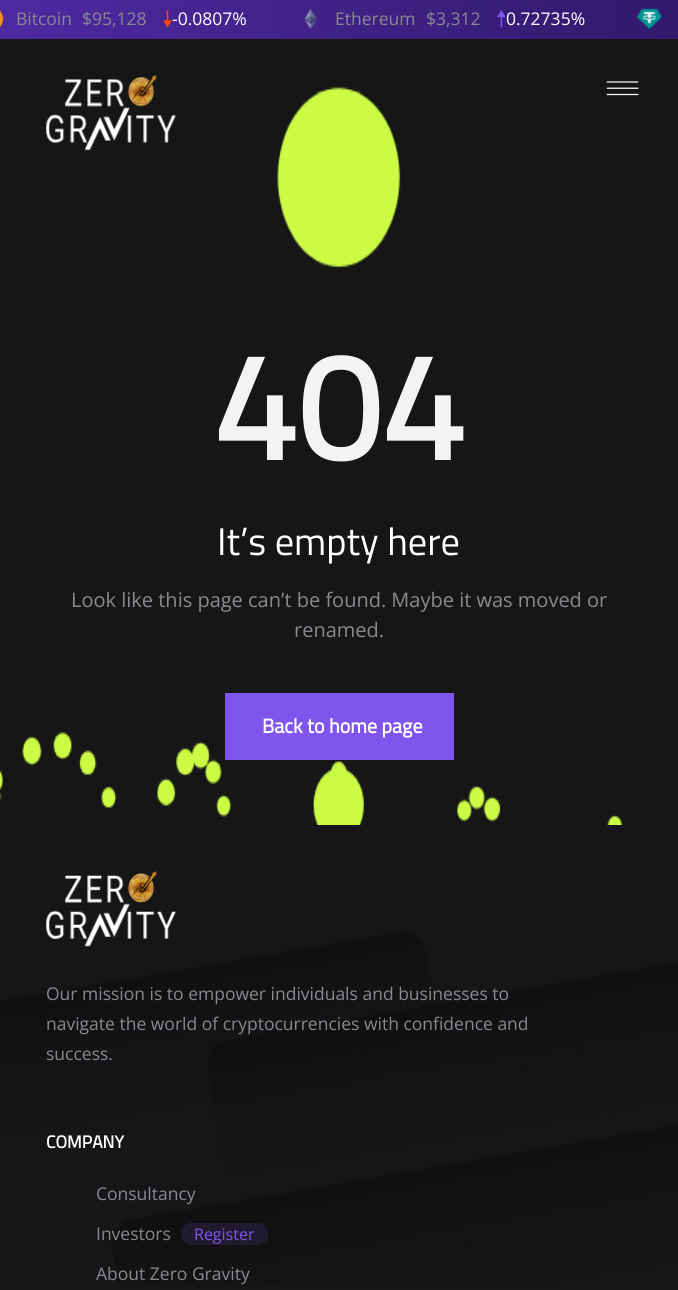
#include <cairo.h>
#include <math.h>
#include <stddef.h>

typedef struct { double x, y; const char *s; } line_t;

static void ink(cairo_t *ctx, unsigned color) {
    cairo_set_source_rgb(ctx, (color >> 16) / 255.0, (color >> 8 & 255) / 255.0, (color & 255) / 255.0);
}

static void round_path(cairo_t *ctx, double x, double y, double w, double h, double r) {
    cairo_new_sub_path(ctx);
    cairo_arc(ctx, x + w - r, y + h - r, r, 0, M_PI / 2);
    cairo_arc(ctx, x + r, y + h - r, r, M_PI / 2, M_PI);
    cairo_arc(ctx, x + r, y + r, r, M_PI, 1.5 * M_PI);
    cairo_arc(ctx, x + w - r, y + r, r, 1.5 * M_PI, 2 * M_PI);
    cairo_close_path(ctx);
}

static void paste(cairo_t *ctx, const char *path, double x, double y, double w, double h) {
    cairo_surface_t *image = cairo_image_surface_create_from_png(path);
    cairo_save(ctx);
    cairo_set_source_surface(ctx, image, x, y);
    cairo_rectangle(ctx, x, y, w, h);
    cairo_fill(ctx);
    cairo_restore(ctx);
    cairo_surface_destroy(image);
}

int main(void) {
    cairo_surface_t *surface = cairo_image_surface_create(CAIRO_FORMAT_RGB24, 678, 1290);
    cairo_t *ctx = cairo_create(surface);
    cairo_font_options_t *options = cairo_font_options_create();
    cairo_font_options_set_hint_metrics(options, CAIRO_HINT_METRICS_OFF);
    cairo_font_options_set_hint_style(options, CAIRO_HINT_STYLE_NONE);
    cairo_set_font_options(ctx, options);
    cairo_set_miter_limit(ctx, 4);
    cairo_pattern_t *gradient;
    ink(ctx, 0x161617);
    cairo_paint(ctx);
    gradient = cairo_pattern_create_linear(0, 19, 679, 19);
    cairo_pattern_add_color_stop_rgba(gradient, 0, 0.306, 0.161, 0.635, 1);
    cairo_pattern_add_color_stop_rgba(gradient, 1, 0.196, 0.098, 0.42, 1);
    cairo_set_source(ctx, gradient);
    cairo_pattern_destroy(gradient);
    cairo_rectangle(ctx, 0, 0, 678, 39);
    cairo_fill(ctx);
    paste(ctx, "media/1.png", 0, 10, 4, 18);
    cairo_select_font_face(ctx, "Open Sans", CAIRO_FONT_SLANT_NORMAL, CAIRO_FONT_WEIGHT_NORMAL);
    cairo_set_font_size(ctx, 17.5);
    ink(ctx, 0x898990);
    cairo_move_to(ctx, 16, 25);
    cairo_show_text(ctx, "Bitcoin");
    cairo_move_to(ctx, 82, 25);
    cairo_show_text(ctx, "$95,128");
    paste(ctx, "media/2.png", 163, 10, 9, 18);
    ink(ctx, 0xFFFFFF);
    cairo_move_to(ctx, 172, 25);
    cairo_show_text(ctx, "-0.0807%");
    paste(ctx, "media/3.png", 304, 9, 13, 20);
    ink(ctx, 0x898990);
    cairo_move_to(ctx, 335, 25);
    cairo_show_text(ctx, "Ethereum");
    cairo_move_to(ctx, 426, 25);
    cairo_show_text(ctx, "$3,312");
    paste(ctx, "media/4.png", 497, 10, 9, 18);
    ink(ctx, 0xFFFFFF);
    cairo_move_to(ctx, 506, 25);
    cairo_show_text(ctx, "0.72735%");
    paste(ctx, "media/5.png", 636, 8, 26, 22);
    paste(ctx, "media/8.png", 0, 87, 678, 738);
    paste(ctx, "media/6.png", 46, 75, 130, 76);
    paste(ctx, "media/7.png", 606, 81, 33, 15);
    cairo_select_font_face(ctx, "Titillium Web", CAIRO_FONT_SLANT_NORMAL, CAIRO_FONT_WEIGHT_BOLD);
    cairo_set_font_size(ctx, 150);
    ink(ctx, 0xF3F3F3);
    cairo_move_to(ctx, 213, 460);
    cairo_show_text(ctx, "404");
    cairo_select_font_face(ctx, "Titillium Web", CAIRO_FONT_SLANT_NORMAL, CAIRO_FONT_WEIGHT_NORMAL);
    cairo_set_font_size(ctx, 38.5);
    ink(ctx, 0xFFFFFF);
    cairo_move_to(ctx, 217, 555);
    cairo_show_text(ctx, "It’s empty here");
    cairo_select_font_face(ctx, "Open Sans", CAIRO_FONT_SLANT_NORMAL, CAIRO_FONT_WEIGHT_NORMAL);
    cairo_set_font_size(ctx, 20);
    ink(ctx, 0x898990);
    cairo_move_to(ctx, 71, 607);
    cairo_show_text(ctx, "Look like this page can’t be found. Maybe it was moved or");
    cairo_move_to(ctx, 294, 637);
    cairo_show_text(ctx, "renamed.");
    ink(ctx, 0x8055EE);
    cairo_rectangle(ctx, 225, 693, 229, 67);
    cairo_fill(ctx);
    cairo_select_font_face(ctx, "Titillium Web", CAIRO_FONT_SLANT_NORMAL, CAIRO_FONT_WEIGHT_BOLD);
    ink(ctx, 0xFFFFFF);
    cairo_move_to(ctx, 262, 733);
    cairo_show_text(ctx, "Back to home page");
    paste(ctx, "media/9.png", 0, 825, 678, 458);
    paste(ctx, "media/10.png", 46, 871, 131, 76);
    cairo_select_font_face(ctx, "Open Sans", CAIRO_FONT_SLANT_NORMAL, CAIRO_FONT_WEIGHT_NORMAL);
    cairo_set_font_size(ctx, 17.5);
    ink(ctx, 0x898990);
    {
        static const line_t items[] = {
            {46, 1000, "Our mission is to empower individuals and businesses to"},
            {46, 1030, "navigate the world of cryptocurrencies with confidence and"},
            {46, 1060, "success."},
        };
        for (size_t i = 0; i < sizeof items / sizeof *items; i++) {
            cairo_move_to(ctx, items[i].x, items[i].y);
            cairo_show_text(ctx, items[i].s);
        }
    }
    cairo_select_font_face(ctx, "Titillium Web", CAIRO_FONT_SLANT_NORMAL, CAIRO_FONT_WEIGHT_BOLD);
    ink(ctx, 0xFFFFFF);
    cairo_move_to(ctx, 46, 1148);
    cairo_show_text(ctx, "COMPANY");
    cairo_select_font_face(ctx, "Open Sans", CAIRO_FONT_SLANT_NORMAL, CAIRO_FONT_WEIGHT_NORMAL);
    ink(ctx, 0x898990);
    cairo_move_to(ctx, 96, 1200);
    cairo_show_text(ctx, "Consultancy");
    cairo_move_to(ctx, 96, 1240);
    cairo_show_text(ctx, "Investors");
    cairo_set_source_rgba(ctx, 0.502, 0.333, 0.933, 0.13);
    round_path(ctx, 181, 1223, 87, 22, 10);
    cairo_fill(ctx);
    cairo_set_font_size(ctx, 16);
    ink(ctx, 0x8055EE);
    cairo_move_to(ctx, 194, 1240);
    cairo_show_text(ctx, "Register");
    cairo_set_font_size(ctx, 17.5);
    ink(ctx, 0x898990);
    cairo_move_to(ctx, 96, 1280);
    cairo_show_text(ctx, "About Zero Gravity");
    cairo_surface_write_to_png(surface, "image.png");
    cairo_font_options_destroy(options);
    cairo_destroy(ctx);
    cairo_surface_destroy(surface);
    return 0;
}
